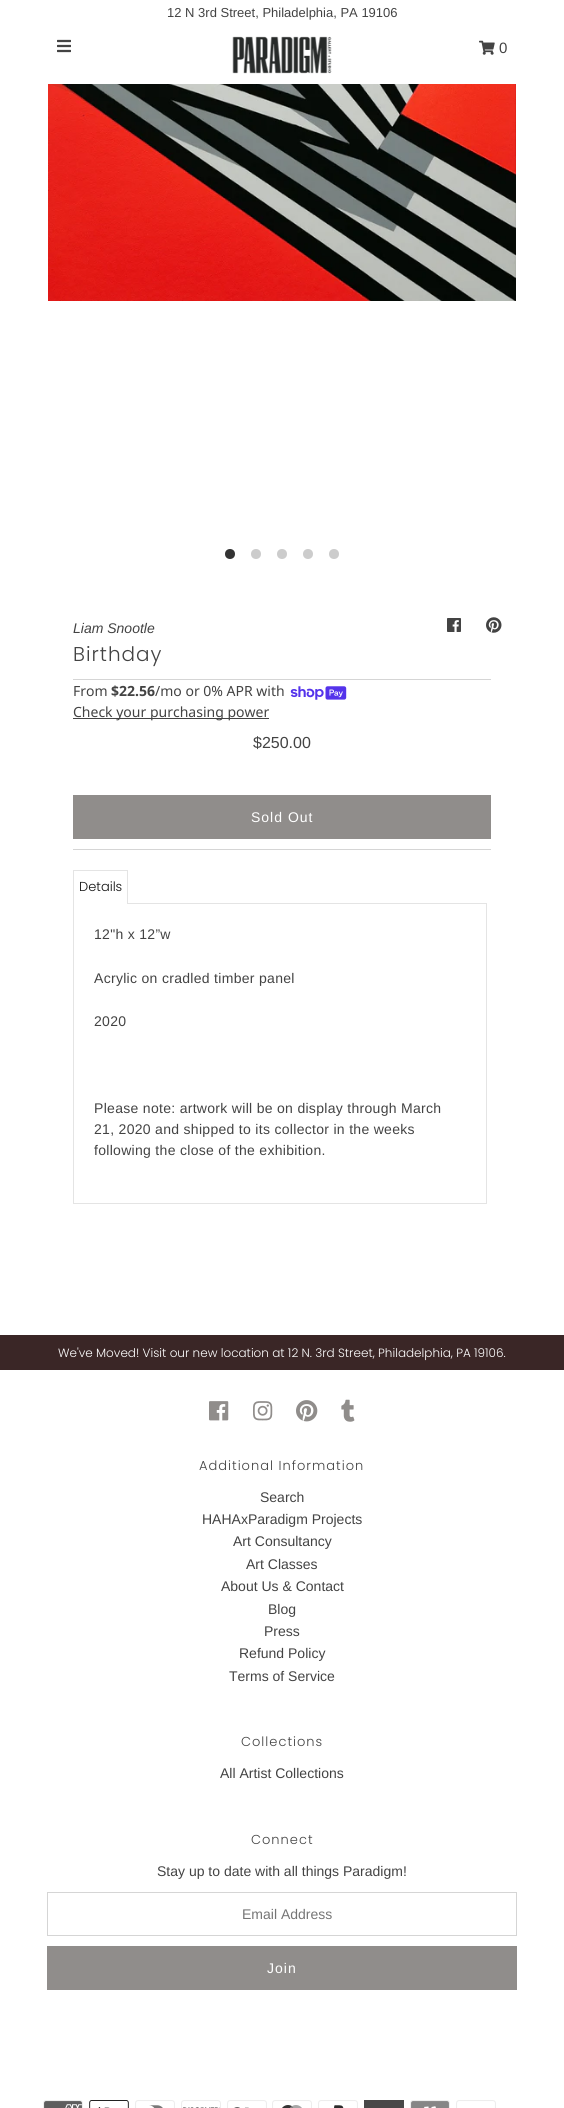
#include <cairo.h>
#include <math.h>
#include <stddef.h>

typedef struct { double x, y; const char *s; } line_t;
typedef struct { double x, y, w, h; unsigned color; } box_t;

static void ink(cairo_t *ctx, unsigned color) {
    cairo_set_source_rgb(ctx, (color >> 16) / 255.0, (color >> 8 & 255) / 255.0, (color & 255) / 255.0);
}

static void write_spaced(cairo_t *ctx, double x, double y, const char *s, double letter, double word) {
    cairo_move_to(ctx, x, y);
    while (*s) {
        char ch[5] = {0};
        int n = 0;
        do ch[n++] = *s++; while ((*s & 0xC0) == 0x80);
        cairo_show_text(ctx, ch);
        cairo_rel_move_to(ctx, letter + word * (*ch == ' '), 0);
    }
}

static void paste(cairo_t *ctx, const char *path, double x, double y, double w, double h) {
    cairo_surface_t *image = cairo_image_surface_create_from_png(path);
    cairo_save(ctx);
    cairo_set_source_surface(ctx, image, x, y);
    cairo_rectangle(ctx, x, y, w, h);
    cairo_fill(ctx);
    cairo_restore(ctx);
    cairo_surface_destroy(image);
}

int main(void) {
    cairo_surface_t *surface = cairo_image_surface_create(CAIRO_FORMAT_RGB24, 564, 2108);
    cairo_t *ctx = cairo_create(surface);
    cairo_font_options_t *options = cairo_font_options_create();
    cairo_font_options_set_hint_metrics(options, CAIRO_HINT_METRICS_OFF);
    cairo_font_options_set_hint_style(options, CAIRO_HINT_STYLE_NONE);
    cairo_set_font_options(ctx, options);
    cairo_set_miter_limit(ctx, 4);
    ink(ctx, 0xFFFFFF);
    cairo_paint(ctx);
    cairo_select_font_face(ctx, "Liberation Sans", CAIRO_FONT_SLANT_NORMAL, CAIRO_FONT_WEIGHT_NORMAL);
    cairo_set_font_size(ctx, 13);
    ink(ctx, 0x434343);
    cairo_move_to(ctx, 167, 17);
    cairo_show_text(ctx, "12 N 3rd Street, Philadelphia, PA 19106");
    paste(ctx, "media/1.png", 57, 39, 14, 14);
    paste(ctx, "media/2.png", 232, 36, 100, 38);
    paste(ctx, "media/3.png", 479, 40, 16, 15);
    cairo_set_font_size(ctx, 15);
    cairo_move_to(ctx, 499, 53);
    cairo_show_text(ctx, "0");
    paste(ctx, "media/4.png", 48, 84, 468, 217);
    ink(ctx, 0x333333);
    cairo_arc(ctx, 230, 554, 5, 0, 2 * M_PI);
    cairo_fill(ctx);
    ink(ctx, 0xCCCCCC);
    cairo_arc(ctx, 256, 554, 5, 0, 2 * M_PI);
    cairo_fill(ctx);
    cairo_arc(ctx, 282, 554, 5, 0, 2 * M_PI);
    cairo_fill(ctx);
    cairo_arc(ctx, 308, 554, 5, 0, 2 * M_PI);
    cairo_fill(ctx);
    cairo_arc(ctx, 334, 554, 5, 0, 2 * M_PI);
    cairo_fill(ctx);
    cairo_select_font_face(ctx, "Liberation Sans", CAIRO_FONT_SLANT_ITALIC, CAIRO_FONT_WEIGHT_NORMAL);
    cairo_set_font_size(ctx, 14);
    ink(ctx, 0x434343);
    cairo_move_to(ctx, 73, 633);
    cairo_show_text(ctx, "Liam Snootle");
    paste(ctx, "media/5.png", 447, 618, 14, 14);
    paste(ctx, "media/6.png", 486, 617, 16, 16);
    cairo_select_font_face(ctx, "Poppins Light", CAIRO_FONT_SLANT_NORMAL, CAIRO_FONT_WEIGHT_NORMAL);
    cairo_set_font_size(ctx, 20);
    write_spaced(ctx, 73, 661, "Birthday", 1, 0);
    ink(ctx, 0xD5D5D5);
    cairo_rectangle(ctx, 73, 679, 418, 1);
    cairo_fill(ctx);
    cairo_rectangle(ctx, 73, 849, 418, 1);
    cairo_fill(ctx);
    cairo_select_font_face(ctx, "Noto Sans", CAIRO_FONT_SLANT_NORMAL, CAIRO_FONT_WEIGHT_NORMAL);
    cairo_set_font_size(ctx, 14);
    ink(ctx, 0x434343);
    cairo_move_to(ctx, 73, 696);
    cairo_show_text(ctx, "From");
    cairo_select_font_face(ctx, "Noto Sans", CAIRO_FONT_SLANT_NORMAL, CAIRO_FONT_WEIGHT_BOLD);
    cairo_move_to(ctx, 111, 696);
    cairo_show_text(ctx, "$22.56");
    cairo_select_font_face(ctx, "Noto Sans", CAIRO_FONT_SLANT_NORMAL, CAIRO_FONT_WEIGHT_NORMAL);
    cairo_move_to(ctx, 155, 696);
    cairo_show_text(ctx, "/mo or 0% APR with");
    paste(ctx, "media/7.png", 290, 686, 57, 14);
    cairo_rectangle(ctx, 73, 718, 196, 1);
    cairo_fill(ctx);
    cairo_move_to(ctx, 73, 717);
    cairo_show_text(ctx, "Check your purchasing power");
    cairo_select_font_face(ctx, "Liberation Sans", CAIRO_FONT_SLANT_NORMAL, CAIRO_FONT_WEIGHT_NORMAL);
    cairo_set_font_size(ctx, 16);
    cairo_move_to(ctx, 253, 748);
    cairo_show_text(ctx, "$250.00");
    ink(ctx, 0x908D8B);
    cairo_rectangle(ctx, 73, 795, 418, 44);
    cairo_fill(ctx);
    cairo_set_font_size(ctx, 14);
    ink(ctx, 0xFFFFFF);
    write_spaced(ctx, 251, 822, "Sold Out", 1, 0);
    {
        static const box_t items[] = {
            {73, 870, 55, 1, 0xE4E4E4},
            {127, 870, 1, 33, 0xE4E4E4},
            {73, 870, 1, 33, 0xE4E4E4},
        };
        for (size_t i = 0; i < sizeof items / sizeof *items; i++) {
            ink(ctx, items[i].color);
            cairo_rectangle(ctx, items[i].x, items[i].y, items[i].w, items[i].h);
            cairo_fill(ctx);
        }
    }
    cairo_select_font_face(ctx, "Poppins Light", CAIRO_FONT_SLANT_NORMAL, CAIRO_FONT_WEIGHT_NORMAL);
    cairo_set_font_size(ctx, 13);
    ink(ctx, 0x111111);
    cairo_move_to(ctx, 79, 891);
    cairo_show_text(ctx, "Details");
    cairo_rectangle(ctx, 73.5, 903.5, 413, 300);
    ink(ctx, 0xE4E4E4);
    cairo_set_line_width(ctx, 1);
    cairo_stroke(ctx);
    ink(ctx, 0xFFFFFF);
    cairo_rectangle(ctx, 74, 903, 53, 1);
    cairo_fill(ctx);
    cairo_select_font_face(ctx, "Liberation Sans", CAIRO_FONT_SLANT_NORMAL, CAIRO_FONT_WEIGHT_NORMAL);
    cairo_set_font_size(ctx, 14);
    ink(ctx, 0x434343);
    {
        static const line_t items[] = {
            {94, 939, "12\"h x 12”w"},
            {94, 983, "Acrylic on cradled timber panel"},
            {94, 1026, "2020"},
            {94, 1113, "Please note: artwork will be on display through March"},
            {94, 1134, "21, 2020 and shipped to its collector in the weeks"},
            {94, 1155, "following the close of the exhibition."},
        };
        for (size_t i = 0; i < sizeof items / sizeof *items; i++) {
            write_spaced(ctx, items[i].x, items[i].y, items[i].s, 0.3, 0);
        }
    }
    ink(ctx, 0x3A2626);
    cairo_rectangle(ctx, 0, 1335, 564, 35);
    cairo_fill(ctx);
    cairo_select_font_face(ctx, "Poppins Light", CAIRO_FONT_SLANT_NORMAL, CAIRO_FONT_WEIGHT_NORMAL);
    cairo_set_font_size(ctx, 12);
    ink(ctx, 0xFFFFFF);
    cairo_move_to(ctx, 58, 1357);
    cairo_show_text(ctx, "We've Moved! Visit our new location at 12 N. 3rd Street, Philadelphia, PA 19106.");
    paste(ctx, "media/8.png", 209, 1401, 20, 20);
    paste(ctx, "media/9.png", 253, 1401, 20, 20);
    paste(ctx, "media/10.png", 296, 1400, 22, 22);
    paste(ctx, "media/11.png", 341, 1399, 14, 23);
    cairo_set_font_size(ctx, 13);
    ink(ctx, 0x434343);
    write_spaced(ctx, 199, 1470, "Additional Information", 1, 0);
    cairo_select_font_face(ctx, "Liberation Sans", CAIRO_FONT_SLANT_NORMAL, CAIRO_FONT_WEIGHT_NORMAL);
    cairo_set_font_size(ctx, 14);
    {
        static const line_t items[] = {
            {260, 1502, "Search"},
            {202, 1524, "HAHAxParadigm Projects"},
            {233, 1546, "Art Consultancy"},
            {246, 1569, "Art Classes"},
            {221, 1591, "About Us & Contact"},
            {268, 1614, "Blog"},
            {264, 1636, "Press"},
            {239, 1658, "Refund Policy"},
            {229, 1681, "Terms of Service"},
        };
        for (size_t i = 0; i < sizeof items / sizeof *items; i++) {
            cairo_move_to(ctx, items[i].x, items[i].y);
            cairo_show_text(ctx, items[i].s);
        }
    }
    cairo_select_font_face(ctx, "Poppins Light", CAIRO_FONT_SLANT_NORMAL, CAIRO_FONT_WEIGHT_NORMAL);
    cairo_set_font_size(ctx, 13);
    write_spaced(ctx, 241, 1746, "Collections", 1, 0);
    cairo_select_font_face(ctx, "Liberation Sans", CAIRO_FONT_SLANT_NORMAL, CAIRO_FONT_WEIGHT_NORMAL);
    cairo_set_font_size(ctx, 14);
    cairo_move_to(ctx, 220, 1778);
    cairo_show_text(ctx, "All Artist Collections");
    cairo_select_font_face(ctx, "Poppins Light", CAIRO_FONT_SLANT_NORMAL, CAIRO_FONT_WEIGHT_NORMAL);
    cairo_set_font_size(ctx, 13);
    write_spaced(ctx, 251, 1844, "Connect", 1, 0);
    cairo_select_font_face(ctx, "Liberation Sans", CAIRO_FONT_SLANT_NORMAL, CAIRO_FONT_WEIGHT_NORMAL);
    cairo_set_font_size(ctx, 14);
    cairo_move_to(ctx, 157, 1876);
    cairo_show_text(ctx, "Stay up to date with all things Paradigm!");
    cairo_rectangle(ctx, 47.5, 1892.5, 469, 43);
    ink(ctx, 0xD5D5D5);
    cairo_stroke(ctx);
    ink(ctx, 0x757575);
    cairo_move_to(ctx, 242, 1919);
    cairo_show_text(ctx, "Email Address");
    ink(ctx, 0x908D8B);
    cairo_rectangle(ctx, 47, 1946, 470, 44);
    cairo_fill(ctx);
    ink(ctx, 0xFFFFFF);
    write_spaced(ctx, 267, 1973, "Join", 1, 0);
    paste(ctx, "media/12.png", 43, 2100, 40, 8);
    paste(ctx, "media/13.png", 89, 2100, 40, 8);
    paste(ctx, "media/14.png", 135, 2100, 40, 8);
    paste(ctx, "media/15.png", 181, 2100, 40, 8);
    paste(ctx, "media/16.png", 227, 2100, 40, 8);
    paste(ctx, "media/17.png", 272, 2100, 40, 8);
    paste(ctx, "media/18.png", 318, 2100, 40, 8);
    ink(ctx, 0x484848);
    cairo_rectangle(ctx, 364, 2100, 40, 8);
    cairo_fill(ctx);
    paste(ctx, "media/19.png", 410, 2100, 40, 8);
    paste(ctx, "media/20.png", 456, 2100, 40, 8);
    cairo_surface_write_to_png(surface, "image.png");
    cairo_font_options_destroy(options);
    cairo_destroy(ctx);
    cairo_surface_destroy(surface);
    return 0;
}
